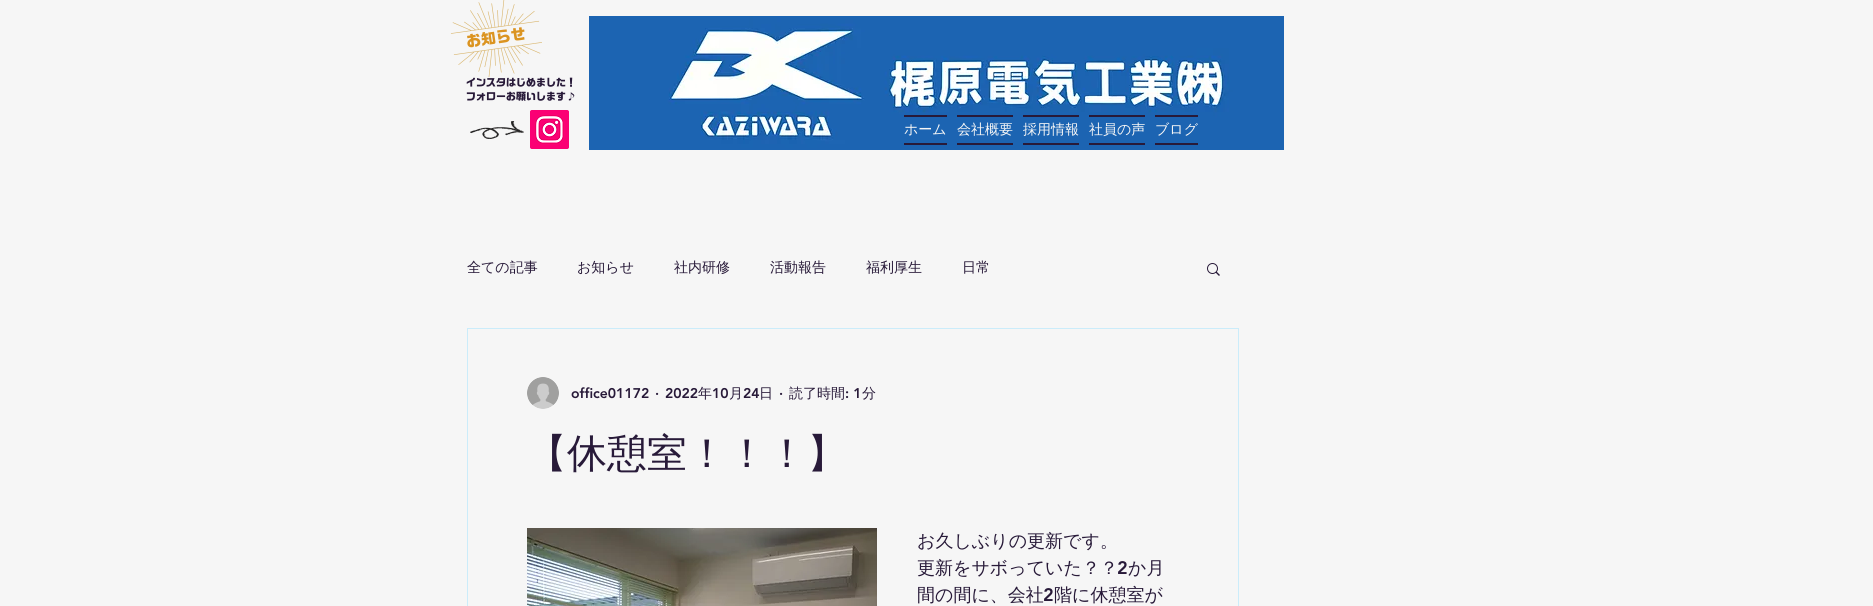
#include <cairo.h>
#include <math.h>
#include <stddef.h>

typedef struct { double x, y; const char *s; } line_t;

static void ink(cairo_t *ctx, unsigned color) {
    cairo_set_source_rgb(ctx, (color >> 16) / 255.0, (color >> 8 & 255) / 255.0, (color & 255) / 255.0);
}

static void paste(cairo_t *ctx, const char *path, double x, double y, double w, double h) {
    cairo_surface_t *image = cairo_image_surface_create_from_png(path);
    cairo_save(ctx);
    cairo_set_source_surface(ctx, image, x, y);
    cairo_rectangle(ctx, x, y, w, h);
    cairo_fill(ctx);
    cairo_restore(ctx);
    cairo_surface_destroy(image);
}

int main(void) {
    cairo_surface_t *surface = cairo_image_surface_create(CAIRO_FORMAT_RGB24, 1873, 606);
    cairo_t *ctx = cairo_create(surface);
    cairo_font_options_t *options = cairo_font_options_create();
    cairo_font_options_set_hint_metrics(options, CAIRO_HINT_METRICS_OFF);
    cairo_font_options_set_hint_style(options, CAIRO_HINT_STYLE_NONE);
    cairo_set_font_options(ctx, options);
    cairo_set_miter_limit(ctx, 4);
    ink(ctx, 0xF6F6F6);
    cairo_paint(ctx);
    cairo_select_font_face(ctx, "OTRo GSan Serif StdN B", CAIRO_FONT_SLANT_NORMAL, CAIRO_FONT_WEIGHT_BOLD);
    cairo_set_font_size(ctx, 15);
    ink(ctx, 0xDB9421);
    cairo_save(ctx);
    cairo_translate(ctx, 467, 47);
    cairo_rotate(ctx, -8 * M_PI / 180);
    cairo_move_to(ctx, 0, 0);
    cairo_show_text(ctx, "お知らせ");
    cairo_restore(ctx);
    paste(ctx, "media/1.png", 450, 0, 92, 77);
    paste(ctx, "media/2.png", 589, 16, 695, 134);
    cairo_set_font_size(ctx, 10);
    ink(ctx, 0x281A39);
    cairo_move_to(ctx, 466, 86);
    cairo_show_text(ctx, "インスタはじめました！");
    cairo_move_to(ctx, 466, 100);
    cairo_show_text(ctx, "フォローお願いします♪");
    paste(ctx, "media/3.png", 470, 121, 54, 18);
    paste(ctx, "media/4.png", 530, 110, 39, 39);
    cairo_rectangle(ctx, 904, 115, 43, 2);
    cairo_fill(ctx);
    cairo_rectangle(ctx, 904, 143, 43, 2);
    cairo_fill(ctx);
    cairo_select_font_face(ctx, "WenQuanYi Zen Hei Medium", CAIRO_FONT_SLANT_NORMAL, CAIRO_FONT_WEIGHT_NORMAL);
    cairo_set_font_size(ctx, 14);
    ink(ctx, 0xF6F6F6);
    cairo_move_to(ctx, 904, 134);
    cairo_show_text(ctx, "ホーム");
    ink(ctx, 0x281A39);
    cairo_rectangle(ctx, 957, 115, 56, 2);
    cairo_fill(ctx);
    cairo_rectangle(ctx, 957, 143, 56, 2);
    cairo_fill(ctx);
    ink(ctx, 0xF6F6F6);
    cairo_move_to(ctx, 957, 134);
    cairo_show_text(ctx, "会社概要");
    ink(ctx, 0x281A39);
    cairo_rectangle(ctx, 1023, 115, 56, 2);
    cairo_fill(ctx);
    cairo_rectangle(ctx, 1023, 143, 56, 2);
    cairo_fill(ctx);
    ink(ctx, 0xF6F6F6);
    cairo_move_to(ctx, 1023, 134);
    cairo_show_text(ctx, "採用情報");
    ink(ctx, 0x281A39);
    cairo_rectangle(ctx, 1089, 115, 56, 2);
    cairo_fill(ctx);
    cairo_rectangle(ctx, 1089, 143, 56, 2);
    cairo_fill(ctx);
    ink(ctx, 0xF6F6F6);
    cairo_move_to(ctx, 1089, 134);
    cairo_show_text(ctx, "社員の声");
    ink(ctx, 0x281A39);
    cairo_rectangle(ctx, 1155, 115, 43, 2);
    cairo_fill(ctx);
    cairo_rectangle(ctx, 1155, 143, 43, 2);
    cairo_fill(ctx);
    ink(ctx, 0xF6F6F6);
    cairo_move_to(ctx, 1155, 134);
    cairo_show_text(ctx, "ブログ");
    ink(ctx, 0x281A39);
    {
        static const line_t items[] = {
            {467, 272, "全ての記事"},
            {577, 272, "お知らせ"},
            {674, 272, "社内研修"},
            {770, 272, "活動報告"},
            {866, 272, "福利厚生"},
            {962, 272, "日常"},
        };
        for (size_t i = 0; i < sizeof items / sizeof *items; i++) {
            cairo_move_to(ctx, items[i].x, items[i].y);
            cairo_show_text(ctx, items[i].s);
        }
    }
    paste(ctx, "media/5.png", 1207, 263, 13, 13);
    cairo_rectangle(ctx, 467.5, 328.5, 771, 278);
    ink(ctx, 0xCBECFA);
    cairo_set_line_width(ctx, 1);
    cairo_stroke(ctx);
    paste(ctx, "media/6.png", 527, 377, 32, 32);
    cairo_select_font_face(ctx, "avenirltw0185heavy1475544 Black", CAIRO_FONT_SLANT_NORMAL, CAIRO_FONT_WEIGHT_NORMAL);
    ink(ctx, 0x281A39);
    {
        static const line_t items[] = {
            {571, 398, "office01172"},
            {655, 398, "·"},
            {665, 398, "2022"},
        };
        for (size_t i = 0; i < sizeof items / sizeof *items; i++) {
            cairo_move_to(ctx, items[i].x, items[i].y);
            cairo_show_text(ctx, items[i].s);
        }
    }
    cairo_select_font_face(ctx, "WenQuanYi Zen Hei Medium", CAIRO_FONT_SLANT_NORMAL, CAIRO_FONT_WEIGHT_NORMAL);
    cairo_move_to(ctx, 698, 398);
    cairo_show_text(ctx, "年");
    cairo_select_font_face(ctx, "avenirltw0185heavy1475544 Black", CAIRO_FONT_SLANT_NORMAL, CAIRO_FONT_WEIGHT_NORMAL);
    cairo_move_to(ctx, 712, 398);
    cairo_show_text(ctx, "10");
    cairo_select_font_face(ctx, "WenQuanYi Zen Hei Medium", CAIRO_FONT_SLANT_NORMAL, CAIRO_FONT_WEIGHT_NORMAL);
    cairo_move_to(ctx, 729, 398);
    cairo_show_text(ctx, "月");
    cairo_select_font_face(ctx, "avenirltw0185heavy1475544 Black", CAIRO_FONT_SLANT_NORMAL, CAIRO_FONT_WEIGHT_NORMAL);
    cairo_move_to(ctx, 743, 398);
    cairo_show_text(ctx, "24");
    cairo_select_font_face(ctx, "WenQuanYi Zen Hei Medium", CAIRO_FONT_SLANT_NORMAL, CAIRO_FONT_WEIGHT_NORMAL);
    cairo_move_to(ctx, 759, 398);
    cairo_show_text(ctx, "日");
    cairo_select_font_face(ctx, "avenirltw0185heavy1475544 Black", CAIRO_FONT_SLANT_NORMAL, CAIRO_FONT_WEIGHT_NORMAL);
    cairo_move_to(ctx, 779, 398);
    cairo_show_text(ctx, "·");
    cairo_select_font_face(ctx, "WenQuanYi Zen Hei Medium", CAIRO_FONT_SLANT_NORMAL, CAIRO_FONT_WEIGHT_NORMAL);
    cairo_move_to(ctx, 789, 398);
    cairo_show_text(ctx, "読了時間");
    cairo_select_font_face(ctx, "avenirltw0185heavy1475544 Black", CAIRO_FONT_SLANT_NORMAL, CAIRO_FONT_WEIGHT_NORMAL);
    cairo_move_to(ctx, 845, 398);
    cairo_show_text(ctx, ": 1");
    cairo_select_font_face(ctx, "WenQuanYi Zen Hei Medium", CAIRO_FONT_SLANT_NORMAL, CAIRO_FONT_WEIGHT_NORMAL);
    cairo_move_to(ctx, 862, 398);
    cairo_show_text(ctx, "分");
    cairo_set_font_size(ctx, 40);
    cairo_move_to(ctx, 527, 467);
    cairo_show_text(ctx, "【休憩室！！！】");
    paste(ctx, "media/7.png", 527, 528, 350, 78);
    cairo_set_font_size(ctx, 18);
    cairo_move_to(ctx, 917, 547);
    cairo_show_text(ctx, "お久しぶりの更新です。");
    cairo_move_to(ctx, 917, 574);
    cairo_show_text(ctx, "更新をサボっていた？？");
    cairo_select_font_face(ctx, "avenirltw0185heavy1475544 Black", CAIRO_FONT_SLANT_NORMAL, CAIRO_FONT_WEIGHT_NORMAL);
    cairo_move_to(ctx, 1117, 574);
    cairo_show_text(ctx, "2");
    cairo_select_font_face(ctx, "WenQuanYi Zen Hei Medium", CAIRO_FONT_SLANT_NORMAL, CAIRO_FONT_WEIGHT_NORMAL);
    cairo_move_to(ctx, 1128, 574);
    cairo_show_text(ctx, "か月");
    cairo_move_to(ctx, 917, 601);
    cairo_show_text(ctx, "間の間に、会社");
    cairo_select_font_face(ctx, "avenirltw0185heavy1475544 Black", CAIRO_FONT_SLANT_NORMAL, CAIRO_FONT_WEIGHT_NORMAL);
    cairo_move_to(ctx, 1043, 601);
    cairo_show_text(ctx, "2");
    cairo_select_font_face(ctx, "WenQuanYi Zen Hei Medium", CAIRO_FONT_SLANT_NORMAL, CAIRO_FONT_WEIGHT_NORMAL);
    cairo_move_to(ctx, 1054, 601);
    cairo_show_text(ctx, "階に休憩室が");
    cairo_surface_write_to_png(surface, "image.png");
    cairo_font_options_destroy(options);
    cairo_destroy(ctx);
    cairo_surface_destroy(surface);
    return 0;
}
